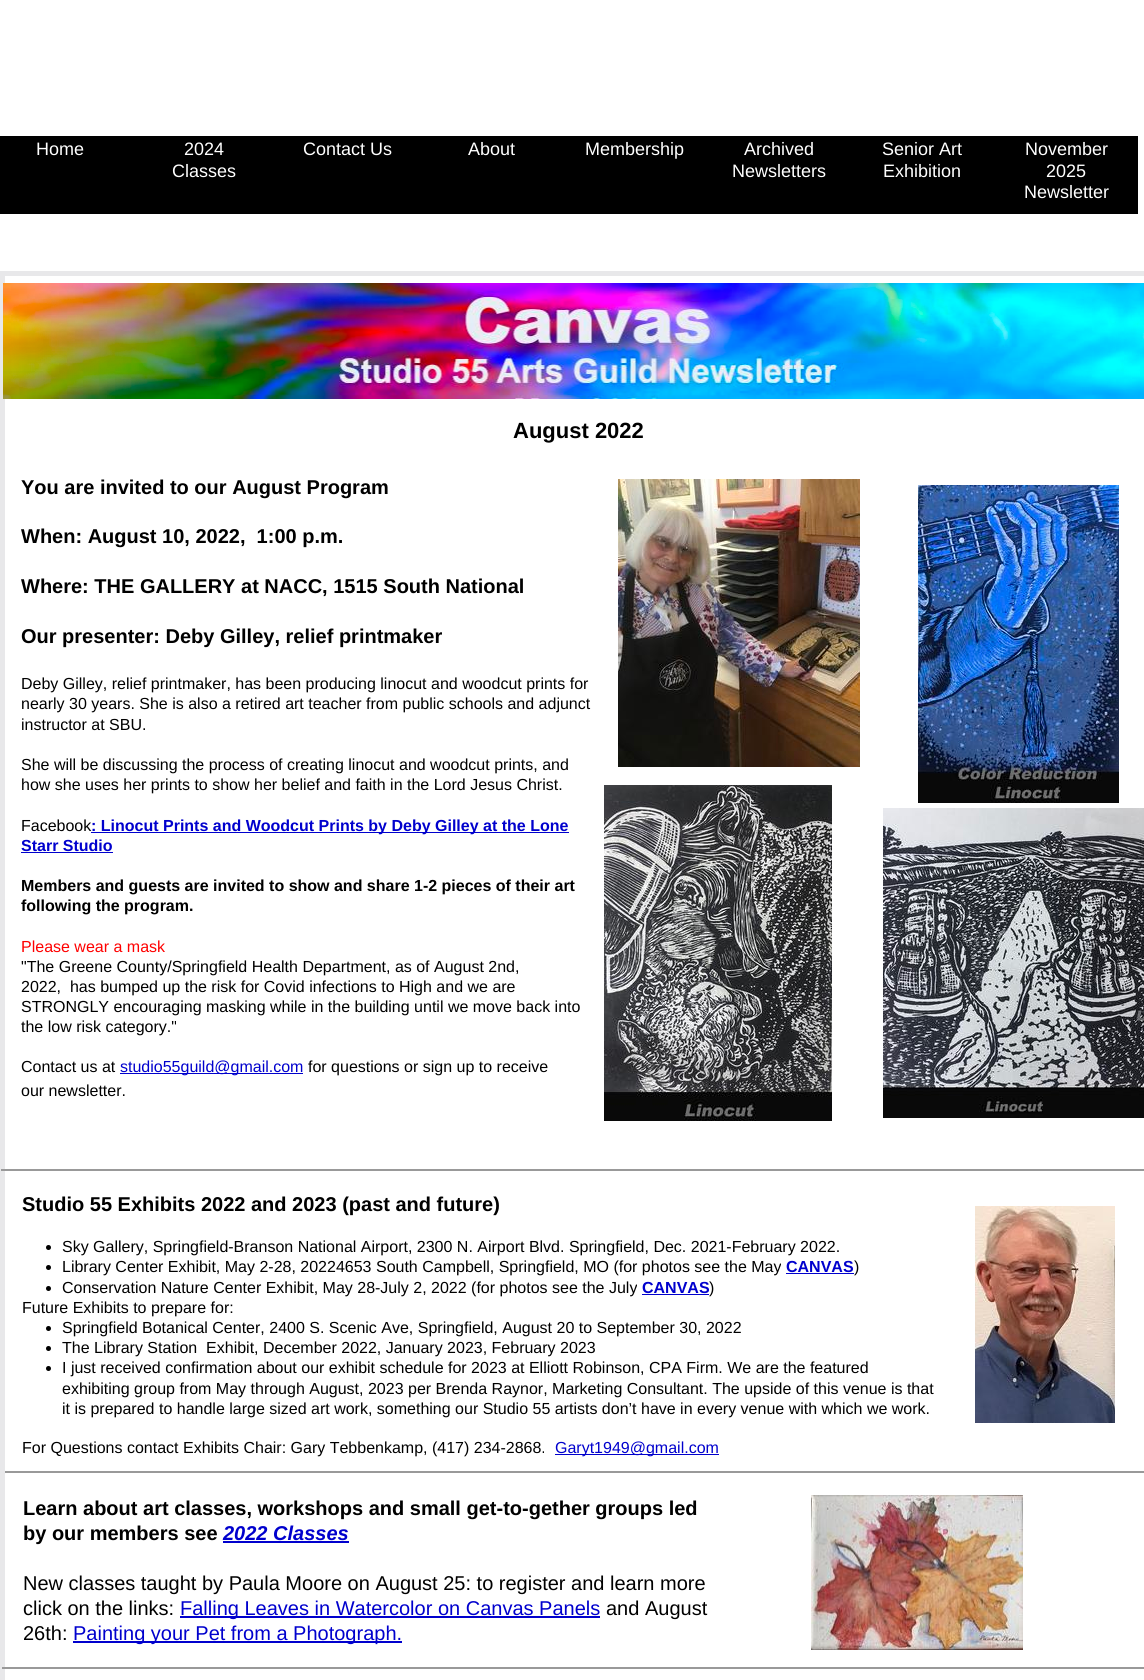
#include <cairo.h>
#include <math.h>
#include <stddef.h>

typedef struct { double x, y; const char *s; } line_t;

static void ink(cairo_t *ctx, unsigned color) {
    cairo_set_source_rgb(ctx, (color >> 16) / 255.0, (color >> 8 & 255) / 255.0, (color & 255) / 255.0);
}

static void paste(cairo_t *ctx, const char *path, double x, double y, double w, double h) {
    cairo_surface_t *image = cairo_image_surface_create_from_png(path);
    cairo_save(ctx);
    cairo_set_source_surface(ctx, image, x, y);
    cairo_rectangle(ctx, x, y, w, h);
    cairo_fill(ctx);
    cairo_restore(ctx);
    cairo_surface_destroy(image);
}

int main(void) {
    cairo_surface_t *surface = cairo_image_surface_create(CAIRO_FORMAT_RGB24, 1144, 1680);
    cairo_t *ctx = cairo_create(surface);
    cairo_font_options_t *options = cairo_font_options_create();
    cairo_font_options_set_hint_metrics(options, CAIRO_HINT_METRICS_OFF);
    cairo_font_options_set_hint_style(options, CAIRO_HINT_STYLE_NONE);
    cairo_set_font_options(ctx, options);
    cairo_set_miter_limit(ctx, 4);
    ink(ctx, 0xFFFFFF);
    cairo_paint(ctx);
    cairo_rectangle(ctx, 2.5, 273.5, 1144, 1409);
    ink(ctx, 0xE8E8EA);
    cairo_set_line_width(ctx, 5);
    cairo_stroke(ctx);
    ink(ctx, 0x000000);
    cairo_rectangle(ctx, 0, 136, 1138, 78);
    cairo_fill(ctx);
    cairo_select_font_face(ctx, "Liberation Sans", CAIRO_FONT_SLANT_NORMAL, CAIRO_FONT_WEIGHT_NORMAL);
    cairo_set_font_size(ctx, 18);
    ink(ctx, 0xFFFFFF);
    {
        static const line_t items[] = {
            {36, 155, "Home"},
            {184, 155, "2024"},
            {172, 177, "Classes"},
            {303, 155, "Contact Us"},
            {468, 155, "About"},
            {585, 155, "Membership"},
            {744, 155, "Archived"},
            {732, 177, "Newsletters"},
            {882, 155, "Senior Art"},
            {883, 177, "Exhibition"},
            {1025, 155, "November"},
            {1046, 177, "2025"},
            {1024, 198, "Newsletter"},
        };
        for (size_t i = 0; i < sizeof items / sizeof *items; i++) {
            cairo_move_to(ctx, items[i].x, items[i].y);
            cairo_show_text(ctx, items[i].s);
        }
    }
    paste(ctx, "media/1.png", 3, 283, 1141, 116);
    cairo_select_font_face(ctx, "Liberation Sans", CAIRO_FONT_SLANT_NORMAL, CAIRO_FONT_WEIGHT_BOLD);
    cairo_set_font_size(ctx, 22);
    ink(ctx, 0x000000);
    cairo_move_to(ctx, 513, 438);
    cairo_show_text(ctx, "August 2022");
    cairo_set_font_size(ctx, 20);
    {
        static const line_t items[] = {
            {21, 494, "You are invited to our August Program"},
            {21, 543, "When: August 10, 2022,  1:00 p.m."},
            {21, 593, "Where: THE GALLERY at NACC, 1515 South National"},
            {21, 643, "Our presenter: Deby Gilley, relief printmaker"},
        };
        for (size_t i = 0; i < sizeof items / sizeof *items; i++) {
            cairo_move_to(ctx, items[i].x, items[i].y);
            cairo_show_text(ctx, items[i].s);
        }
    }
    cairo_select_font_face(ctx, "Liberation Sans", CAIRO_FONT_SLANT_NORMAL, CAIRO_FONT_WEIGHT_NORMAL);
    cairo_set_font_size(ctx, 16);
    {
        static const line_t items[] = {
            {21, 689, "Deby Gilley, relief printmaker, has been producing linocut and woodcut prints for"},
            {21, 709, "nearly 30 years. She is also a retired art teacher from public schools and adjunct"},
            {21, 730, "instructor at SBU."},
            {21, 770, "She will be discussing the process of creating linocut and woodcut prints, and"},
            {21, 790, "how she uses her prints to show her belief and faith in the Lord Jesus Christ."},
            {21, 831, "Facebook"},
        };
        for (size_t i = 0; i < sizeof items / sizeof *items; i++) {
            cairo_move_to(ctx, items[i].x, items[i].y);
            cairo_show_text(ctx, items[i].s);
        }
    }
    ink(ctx, 0x0000CD);
    cairo_rectangle(ctx, 91, 832, 478, 1);
    cairo_fill(ctx);
    cairo_select_font_face(ctx, "Liberation Sans", CAIRO_FONT_SLANT_NORMAL, CAIRO_FONT_WEIGHT_BOLD);
    cairo_move_to(ctx, 91, 831);
    cairo_show_text(ctx, ": Linocut Prints and Woodcut Prints by Deby Gilley at the Lone");
    cairo_move_to(ctx, 21, 851);
    cairo_show_text(ctx, "Starr Studio");
    cairo_rectangle(ctx, 21, 852, 92, 1);
    cairo_fill(ctx);
    ink(ctx, 0x000000);
    cairo_move_to(ctx, 21, 891);
    cairo_show_text(ctx, "Members and guests are invited to show and share 1-2 pieces of their art");
    cairo_move_to(ctx, 21, 911);
    cairo_show_text(ctx, "following the program.");
    cairo_select_font_face(ctx, "Liberation Sans", CAIRO_FONT_SLANT_NORMAL, CAIRO_FONT_WEIGHT_NORMAL);
    ink(ctx, 0xFF0000);
    cairo_move_to(ctx, 21, 952);
    cairo_show_text(ctx, "Please wear a mask");
    ink(ctx, 0x000000);
    {
        static const line_t items[] = {
            {21, 972, "\"The Greene County/Springfield Health Department, as of August 2nd,"},
            {21, 992, "2022,  has bumped up the risk for Covid infections to High and we are"},
            {21, 1012, "STRONGLY encouraging masking while in the building until we move back into"},
            {21, 1032, "the low risk category.\""},
            {21, 1072, "Contact us at"},
        };
        for (size_t i = 0; i < sizeof items / sizeof *items; i++) {
            cairo_move_to(ctx, items[i].x, items[i].y);
            cairo_show_text(ctx, items[i].s);
        }
    }
    ink(ctx, 0x0000CD);
    cairo_rectangle(ctx, 120, 1073, 183, 1);
    cairo_fill(ctx);
    cairo_move_to(ctx, 120, 1072);
    cairo_show_text(ctx, "studio55guild@gmail.com");
    ink(ctx, 0x000000);
    cairo_move_to(ctx, 308, 1072);
    cairo_show_text(ctx, "for questions or sign up to receive");
    cairo_move_to(ctx, 21, 1096);
    cairo_show_text(ctx, "our newsletter.");
    paste(ctx, "media/2.png", 618, 479, 242, 288);
    paste(ctx, "media/3.png", 918, 485, 201, 318);
    paste(ctx, "media/4.png", 604, 785, 228, 336);
    paste(ctx, "media/5.png", 883, 808, 261, 310);
    ink(ctx, 0x999999);
    cairo_rectangle(ctx, 1, 1169, 1143, 2);
    cairo_fill(ctx);
    cairo_select_font_face(ctx, "Liberation Sans", CAIRO_FONT_SLANT_NORMAL, CAIRO_FONT_WEIGHT_BOLD);
    cairo_set_font_size(ctx, 20);
    ink(ctx, 0x000000);
    cairo_move_to(ctx, 22, 1211);
    cairo_show_text(ctx, "Studio 55 Exhibits 2022 and 2023 (past and future)");
    cairo_new_path(ctx);
    cairo_arc(ctx, 48.5, 1247.5, 2.5, 0, 2 * M_PI);
    cairo_fill(ctx);
    cairo_select_font_face(ctx, "Liberation Sans", CAIRO_FONT_SLANT_NORMAL, CAIRO_FONT_WEIGHT_NORMAL);
    cairo_set_font_size(ctx, 16);
    cairo_move_to(ctx, 62, 1252);
    cairo_show_text(ctx, "Sky Gallery, Springfield-Branson National Airport, 2300 N. Airport Blvd. Springfield, Dec. 2021-February 2022.");
    cairo_new_path(ctx);
    cairo_arc(ctx, 48.5, 1267.5, 2.5, 0, 2 * M_PI);
    cairo_fill(ctx);
    cairo_move_to(ctx, 62, 1272);
    cairo_show_text(ctx, "Library Center Exhibit, May 2-28, 20224653 South Campbell, Springfield, MO (for photos see the May");
    cairo_select_font_face(ctx, "Liberation Sans", CAIRO_FONT_SLANT_NORMAL, CAIRO_FONT_WEIGHT_BOLD);
    ink(ctx, 0x0000CD);
    cairo_move_to(ctx, 786, 1272);
    cairo_show_text(ctx, "CANVAS");
    cairo_rectangle(ctx, 786, 1273, 68, 1);
    cairo_fill(ctx);
    cairo_select_font_face(ctx, "Liberation Sans", CAIRO_FONT_SLANT_NORMAL, CAIRO_FONT_WEIGHT_NORMAL);
    ink(ctx, 0x000000);
    cairo_move_to(ctx, 854, 1272);
    cairo_show_text(ctx, ")");
    cairo_new_path(ctx);
    cairo_arc(ctx, 48.5, 1288.5, 2.5, 0, 2 * M_PI);
    cairo_fill(ctx);
    cairo_move_to(ctx, 62, 1293);
    cairo_show_text(ctx, "Conservation Nature Center Exhibit, May 28-July 2, 2022 (for photos see the July");
    cairo_select_font_face(ctx, "Liberation Sans", CAIRO_FONT_SLANT_NORMAL, CAIRO_FONT_WEIGHT_BOLD);
    ink(ctx, 0x0000CD);
    cairo_move_to(ctx, 642, 1293);
    cairo_show_text(ctx, "CANVAS");
    cairo_select_font_face(ctx, "Liberation Sans", CAIRO_FONT_SLANT_NORMAL, CAIRO_FONT_WEIGHT_NORMAL);
    ink(ctx, 0x000000);
    cairo_move_to(ctx, 709, 1293);
    cairo_show_text(ctx, ")");
    ink(ctx, 0x0000CD);
    cairo_rectangle(ctx, 642, 1294, 67, 1);
    cairo_fill(ctx);
    ink(ctx, 0x000000);
    cairo_move_to(ctx, 22, 1313);
    cairo_show_text(ctx, "Future Exhibits to prepare for:");
    cairo_new_path(ctx);
    cairo_arc(ctx, 48.5, 1328.5, 2.5, 0, 2 * M_PI);
    cairo_fill(ctx);
    cairo_move_to(ctx, 62, 1333);
    cairo_show_text(ctx, "Springfield Botanical Center, 2400 S. Scenic Ave, Springfield, August 20 to September 30, 2022");
    cairo_new_path(ctx);
    cairo_arc(ctx, 48.5, 1348.5, 2.5, 0, 2 * M_PI);
    cairo_fill(ctx);
    cairo_move_to(ctx, 62, 1353);
    cairo_show_text(ctx, "The Library Station  Exhibit, December 2022, January 2023, February 2023");
    cairo_new_path(ctx);
    cairo_arc(ctx, 48.5, 1368.5, 2.5, 0, 2 * M_PI);
    cairo_fill(ctx);
    {
        static const line_t items[] = {
            {62, 1373, "I just received confirmation about our exhibit schedule for 2023 at Elliott Robinson, CPA Firm. We are the featured"},
            {62, 1394, "exhibiting group from May through August, 2023 per Brenda Raynor, Marketing Consultant. The upside of this venue is that"},
            {62, 1414, "it is prepared to handle large sized art work, something our Studio 55 artists don’t have in every venue with which we work."},
            {22, 1453, "For Questions contact Exhibits Chair: Gary Tebbenkamp, (417) 234-2868."},
        };
        for (size_t i = 0; i < sizeof items / sizeof *items; i++) {
            cairo_move_to(ctx, items[i].x, items[i].y);
            cairo_show_text(ctx, items[i].s);
        }
    }
    ink(ctx, 0x0000CD);
    cairo_rectangle(ctx, 555, 1454, 164, 1);
    cairo_fill(ctx);
    cairo_move_to(ctx, 555, 1453);
    cairo_show_text(ctx, "Garyt1949@gmail.com");
    paste(ctx, "media/6.png", 975, 1206, 140, 217);
    ink(ctx, 0x999999);
    cairo_rectangle(ctx, 5, 1471, 1139, 2);
    cairo_fill(ctx);
    cairo_select_font_face(ctx, "Liberation Sans", CAIRO_FONT_SLANT_NORMAL, CAIRO_FONT_WEIGHT_BOLD);
    cairo_set_font_size(ctx, 20);
    ink(ctx, 0x000000);
    cairo_move_to(ctx, 23, 1515);
    cairo_show_text(ctx, "Learn about art classes, workshops and small get-to-gether groups led");
    cairo_move_to(ctx, 23, 1540);
    cairo_show_text(ctx, "by our members see");
    cairo_select_font_face(ctx, "Liberation Sans", CAIRO_FONT_SLANT_ITALIC, CAIRO_FONT_WEIGHT_BOLD);
    ink(ctx, 0x0000CD);
    cairo_move_to(ctx, 223, 1540);
    cairo_show_text(ctx, "2022 Classes");
    cairo_rectangle(ctx, 223, 1541, 126, 2);
    cairo_fill(ctx);
    cairo_select_font_face(ctx, "Liberation Sans", CAIRO_FONT_SLANT_NORMAL, CAIRO_FONT_WEIGHT_NORMAL);
    ink(ctx, 0x000000);
    cairo_move_to(ctx, 23, 1590);
    cairo_show_text(ctx, "New classes taught by Paula Moore on August 25: to register and learn more");
    cairo_move_to(ctx, 23, 1615);
    cairo_show_text(ctx, "click on the links:");
    ink(ctx, 0x0000CD);
    cairo_rectangle(ctx, 180, 1616, 420, 2);
    cairo_fill(ctx);
    cairo_move_to(ctx, 180, 1615);
    cairo_show_text(ctx, "Falling Leaves in Watercolor on Canvas Panels");
    ink(ctx, 0x000000);
    cairo_move_to(ctx, 606, 1615);
    cairo_show_text(ctx, "and August");
    cairo_move_to(ctx, 23, 1640);
    cairo_show_text(ctx, "26th:");
    ink(ctx, 0x0000CD);
    cairo_rectangle(ctx, 73, 1641, 329, 2);
    cairo_fill(ctx);
    cairo_move_to(ctx, 73, 1640);
    cairo_show_text(ctx, "Painting your Pet from a Photograph.");
    paste(ctx, "media/7.png", 811, 1495, 212, 155);
    ink(ctx, 0x999999);
    cairo_rectangle(ctx, 2, 1667, 1142, 2);
    cairo_fill(ctx);
    cairo_surface_write_to_png(surface, "image.png");
    cairo_font_options_destroy(options);
    cairo_destroy(ctx);
    cairo_surface_destroy(surface);
    return 0;
}
